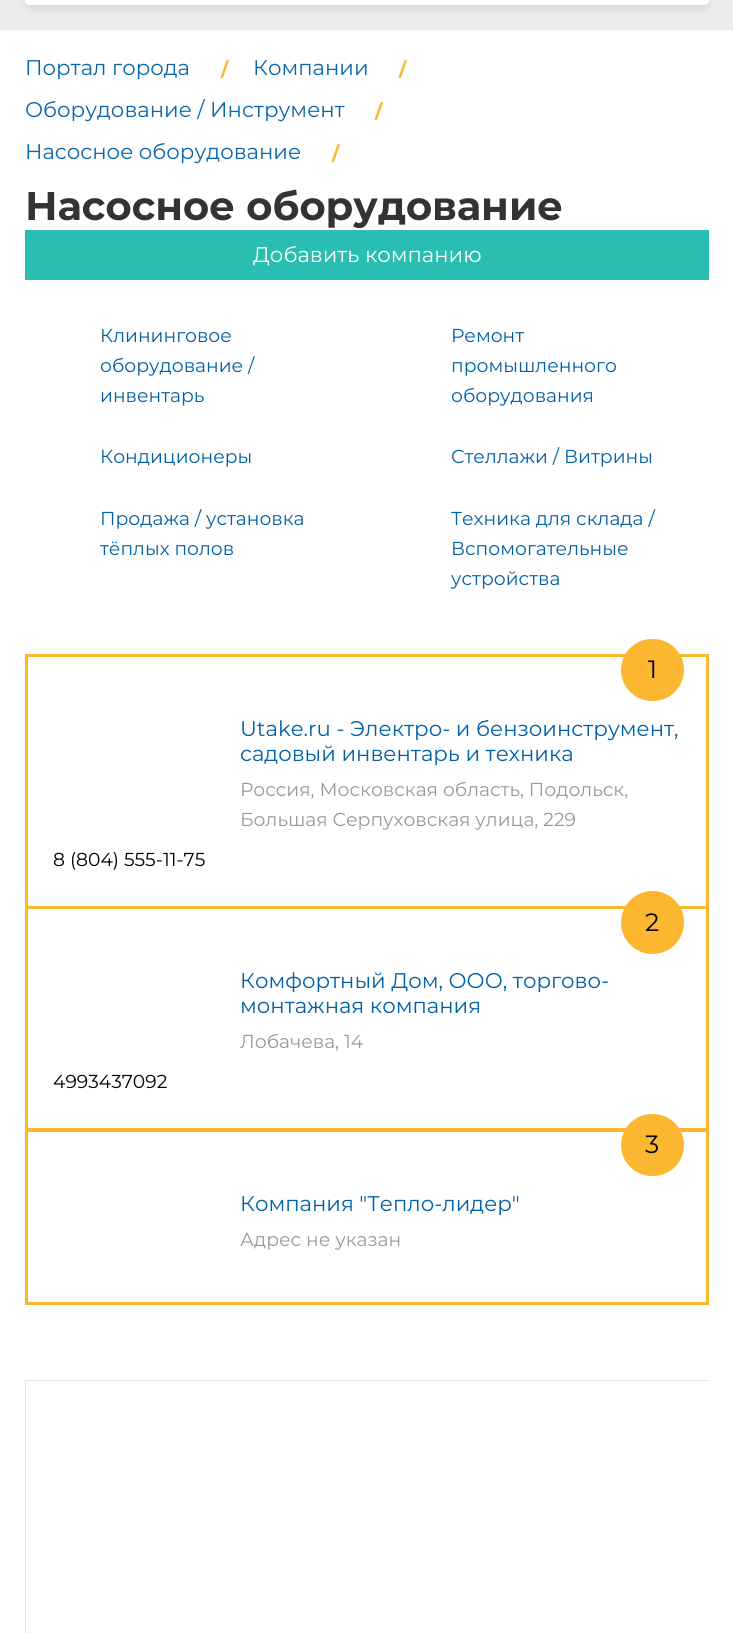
#include <cairo.h>
#include <math.h>
#include <stddef.h>

typedef struct { double x, y; const char *s; } line_t;

static void ink(cairo_t *ctx, unsigned color) {
    cairo_set_source_rgb(ctx, (color >> 16) / 255.0, (color >> 8 & 255) / 255.0, (color & 255) / 255.0);
}

static void round_path(cairo_t *ctx, double x, double y, double w, double h, double r) {
    cairo_new_sub_path(ctx);
    cairo_arc(ctx, x + w - r, y + h - r, r, 0, M_PI / 2);
    cairo_arc(ctx, x + r, y + h - r, r, M_PI / 2, M_PI);
    cairo_arc(ctx, x + r, y + r, r, M_PI, 1.5 * M_PI);
    cairo_arc(ctx, x + w - r, y + r, r, 1.5 * M_PI, 2 * M_PI);
    cairo_close_path(ctx);
}

static void blur_box(cairo_t *ctx, double x, double y, double w, double h, double r, double blur, double alpha) {
    cairo_push_group_with_content(ctx, CAIRO_CONTENT_ALPHA);
    cairo_set_operator(ctx, CAIRO_OPERATOR_SOURCE);
    for (int i = 15; i >= -15 && fmin(w, h) + blur * i / 3 > 0; i -= 2) {
        double e = blur * i / 6;
        cairo_set_source_rgba(ctx, 0, 0, 0, alpha * erfc((i - 1) / 8.5) / 2);
        round_path(ctx, x - e, y - e, w + 2 * e, h + 2 * e, fmax(0, fmin(r + e + blur * .6, fmin(w, h) / 2 + e)));
        cairo_fill(ctx);
    }
    cairo_pattern_t *soft = cairo_pop_group(ctx);
    cairo_mask(ctx, soft);
    cairo_pattern_destroy(soft);
}

int main(void) {
    cairo_surface_t *surface = cairo_image_surface_create(CAIRO_FORMAT_RGB24, 733, 1633);
    cairo_t *ctx = cairo_create(surface);
    cairo_font_options_t *options = cairo_font_options_create();
    cairo_font_options_set_hint_metrics(options, CAIRO_HINT_METRICS_OFF);
    cairo_font_options_set_hint_style(options, CAIRO_HINT_STYLE_NONE);
    cairo_set_font_options(ctx, options);
    cairo_set_miter_limit(ctx, 4);
    ink(ctx, 0xFFFFFF);
    cairo_paint(ctx);
    ink(ctx, 0xEBEBEB);
    cairo_rectangle(ctx, 0, 0, 733, 30);
    cairo_fill(ctx);
    ink(ctx, 0x848484);
    blur_box(ctx, 25, -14, 684, 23, 5, 3, 0.18);
    ink(ctx, 0xFFFFFF);
    round_path(ctx, 25, -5, 684, 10, 5);
    cairo_fill(ctx);
    round_path(ctx, 25, -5, 253, 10, 5);
    cairo_fill(ctx);
    round_path(ctx, 278, -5, 431, 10, 5);
    cairo_fill(ctx);
    cairo_select_font_face(ctx, "Montserrat", CAIRO_FONT_SLANT_NORMAL, CAIRO_FONT_WEIGHT_NORMAL);
    cairo_set_font_size(ctx, 21.25);
    ink(ctx, 0x0B68A8);
    cairo_move_to(ctx, 25, 75);
    cairo_show_text(ctx, "Портал города");
    cairo_select_font_face(ctx, "Montserrat", CAIRO_FONT_SLANT_NORMAL, CAIRO_FONT_WEIGHT_BOLD);
    cairo_set_font_size(ctx, 18.75);
    ink(ctx, 0xFCB731);
    cairo_move_to(ctx, 221, 76);
    cairo_show_text(ctx, "/");
    cairo_select_font_face(ctx, "Montserrat", CAIRO_FONT_SLANT_NORMAL, CAIRO_FONT_WEIGHT_NORMAL);
    cairo_set_font_size(ctx, 21.25);
    ink(ctx, 0x0B68A8);
    cairo_move_to(ctx, 253, 75);
    cairo_show_text(ctx, "Компании");
    cairo_select_font_face(ctx, "Montserrat", CAIRO_FONT_SLANT_NORMAL, CAIRO_FONT_WEIGHT_BOLD);
    cairo_set_font_size(ctx, 18.75);
    ink(ctx, 0xFCB731);
    cairo_move_to(ctx, 399, 76);
    cairo_show_text(ctx, "/");
    cairo_select_font_face(ctx, "Montserrat", CAIRO_FONT_SLANT_NORMAL, CAIRO_FONT_WEIGHT_NORMAL);
    cairo_set_font_size(ctx, 21.25);
    ink(ctx, 0x0B68A8);
    cairo_move_to(ctx, 25, 117);
    cairo_show_text(ctx, "Оборудование / Инструмент");
    cairo_select_font_face(ctx, "Montserrat", CAIRO_FONT_SLANT_NORMAL, CAIRO_FONT_WEIGHT_BOLD);
    cairo_set_font_size(ctx, 18.75);
    ink(ctx, 0xFCB731);
    cairo_move_to(ctx, 375, 118);
    cairo_show_text(ctx, "/");
    cairo_select_font_face(ctx, "Montserrat", CAIRO_FONT_SLANT_NORMAL, CAIRO_FONT_WEIGHT_NORMAL);
    cairo_set_font_size(ctx, 21.25);
    ink(ctx, 0x0B68A8);
    cairo_move_to(ctx, 25, 159);
    cairo_show_text(ctx, "Насосное оборудование");
    cairo_select_font_face(ctx, "Montserrat", CAIRO_FONT_SLANT_NORMAL, CAIRO_FONT_WEIGHT_BOLD);
    cairo_set_font_size(ctx, 18.75);
    ink(ctx, 0xFCB731);
    cairo_move_to(ctx, 332, 160);
    cairo_show_text(ctx, "/");
    cairo_set_font_size(ctx, 40);
    ink(ctx, 0x333333);
    cairo_move_to(ctx, 25, 220);
    cairo_show_text(ctx, "Насосное оборудование");
    ink(ctx, 0x2ABEB2);
    cairo_rectangle(ctx, 25, 230, 684, 50);
    cairo_fill(ctx);
    cairo_select_font_face(ctx, "Montserrat", CAIRO_FONT_SLANT_NORMAL, CAIRO_FONT_WEIGHT_NORMAL);
    cairo_set_font_size(ctx, 21.25);
    ink(ctx, 0xFFFFFF);
    cairo_move_to(ctx, 253, 262);
    cairo_show_text(ctx, "Добавить компанию");
    cairo_set_font_size(ctx, 18.75);
    ink(ctx, 0x0061A4);
    {
        static const line_t items[] = {
            {100, 342, "Клининговое"},
            {100, 372, "оборудование /"},
            {100, 402, "инвентарь"},
            {451, 342, "Ремонт"},
            {451, 372, "промышленного"},
            {451, 402, "оборудования"},
            {100, 463, "Кондиционеры"},
            {451, 463, "Стеллажи / Витрины"},
            {100, 525, "Продажа / установка"},
            {100, 555, "тёплых полов"},
            {451, 525, "Техника для склада /"},
            {451, 555, "Вспомогательные"},
            {451, 585, "устройства"},
        };
        for (size_t i = 0; i < sizeof items / sizeof *items; i++) {
            cairo_move_to(ctx, items[i].x, items[i].y);
            cairo_show_text(ctx, items[i].s);
        }
    }
    cairo_rectangle(ctx, 26.5, 655.5, 681, 252);
    ink(ctx, 0xFCB731);
    cairo_set_line_width(ctx, 3);
    cairo_stroke(ctx);
    round_path(ctx, 621, 639, 63, 62, 31);
    cairo_fill(ctx);
    cairo_set_font_size(ctx, 25);
    ink(ctx, 0x000000);
    cairo_move_to(ctx, 648, 678);
    cairo_show_text(ctx, "1");
    cairo_set_font_size(ctx, 21.25);
    ink(ctx, 0x0061A4);
    cairo_move_to(ctx, 240, 736);
    cairo_show_text(ctx, "Utake.ru - Электро- и бензоинструмент,");
    cairo_move_to(ctx, 240, 761);
    cairo_show_text(ctx, "садовый инвентарь и техника");
    cairo_set_font_size(ctx, 18.75);
    ink(ctx, 0x999999);
    cairo_move_to(ctx, 240, 796);
    cairo_show_text(ctx, "Россия, Московская область, Подольск,");
    cairo_move_to(ctx, 240, 826);
    cairo_show_text(ctx, "Большая Серпуховская улица, 229");
    ink(ctx, 0x000000);
    cairo_move_to(ctx, 53, 866);
    cairo_show_text(ctx, "8 (804) 555-11-75");
    cairo_rectangle(ctx, 26.5, 907.5, 681, 222);
    ink(ctx, 0xFCB731);
    cairo_stroke(ctx);
    cairo_arc(ctx, 652.5, 922.5, 31.5, 0, 2 * M_PI);
    cairo_fill(ctx);
    cairo_set_font_size(ctx, 25);
    ink(ctx, 0x000000);
    cairo_move_to(ctx, 645, 931);
    cairo_show_text(ctx, "2");
    cairo_set_font_size(ctx, 21.25);
    ink(ctx, 0x0061A4);
    cairo_move_to(ctx, 240, 988);
    cairo_show_text(ctx, "Комфортный Дом, ООО, торгово-");
    cairo_move_to(ctx, 240, 1013);
    cairo_show_text(ctx, "монтажная компания");
    cairo_set_font_size(ctx, 18.75);
    ink(ctx, 0x999999);
    cairo_move_to(ctx, 240, 1048);
    cairo_show_text(ctx, "Лобачева, 14");
    ink(ctx, 0x000000);
    cairo_move_to(ctx, 53, 1088);
    cairo_show_text(ctx, "4993437092");
    cairo_rectangle(ctx, 26.5, 1130.5, 681, 173);
    ink(ctx, 0xFCB731);
    cairo_stroke(ctx);
    round_path(ctx, 621, 1114, 63, 62, 31);
    cairo_fill(ctx);
    cairo_set_font_size(ctx, 25);
    ink(ctx, 0x000000);
    cairo_move_to(ctx, 645, 1153);
    cairo_show_text(ctx, "3");
    cairo_set_font_size(ctx, 21.25);
    ink(ctx, 0x0061A4);
    cairo_move_to(ctx, 240, 1211);
    cairo_show_text(ctx, "Компания \"Тепло-лидер\"");
    cairo_set_font_size(ctx, 18.75);
    ink(ctx, 0x999999);
    cairo_move_to(ctx, 240, 1246);
    cairo_show_text(ctx, "Адрес не указан");
    ink(ctx, 0xE2E2E2);
    cairo_rectangle(ctx, 25, 1380, 684, 1);
    cairo_fill(ctx);
    cairo_rectangle(ctx, 25, 1380, 1, 253);
    cairo_fill(ctx);
    cairo_surface_write_to_png(surface, "image.png");
    cairo_font_options_destroy(options);
    cairo_destroy(ctx);
    cairo_surface_destroy(surface);
    return 0;
}
